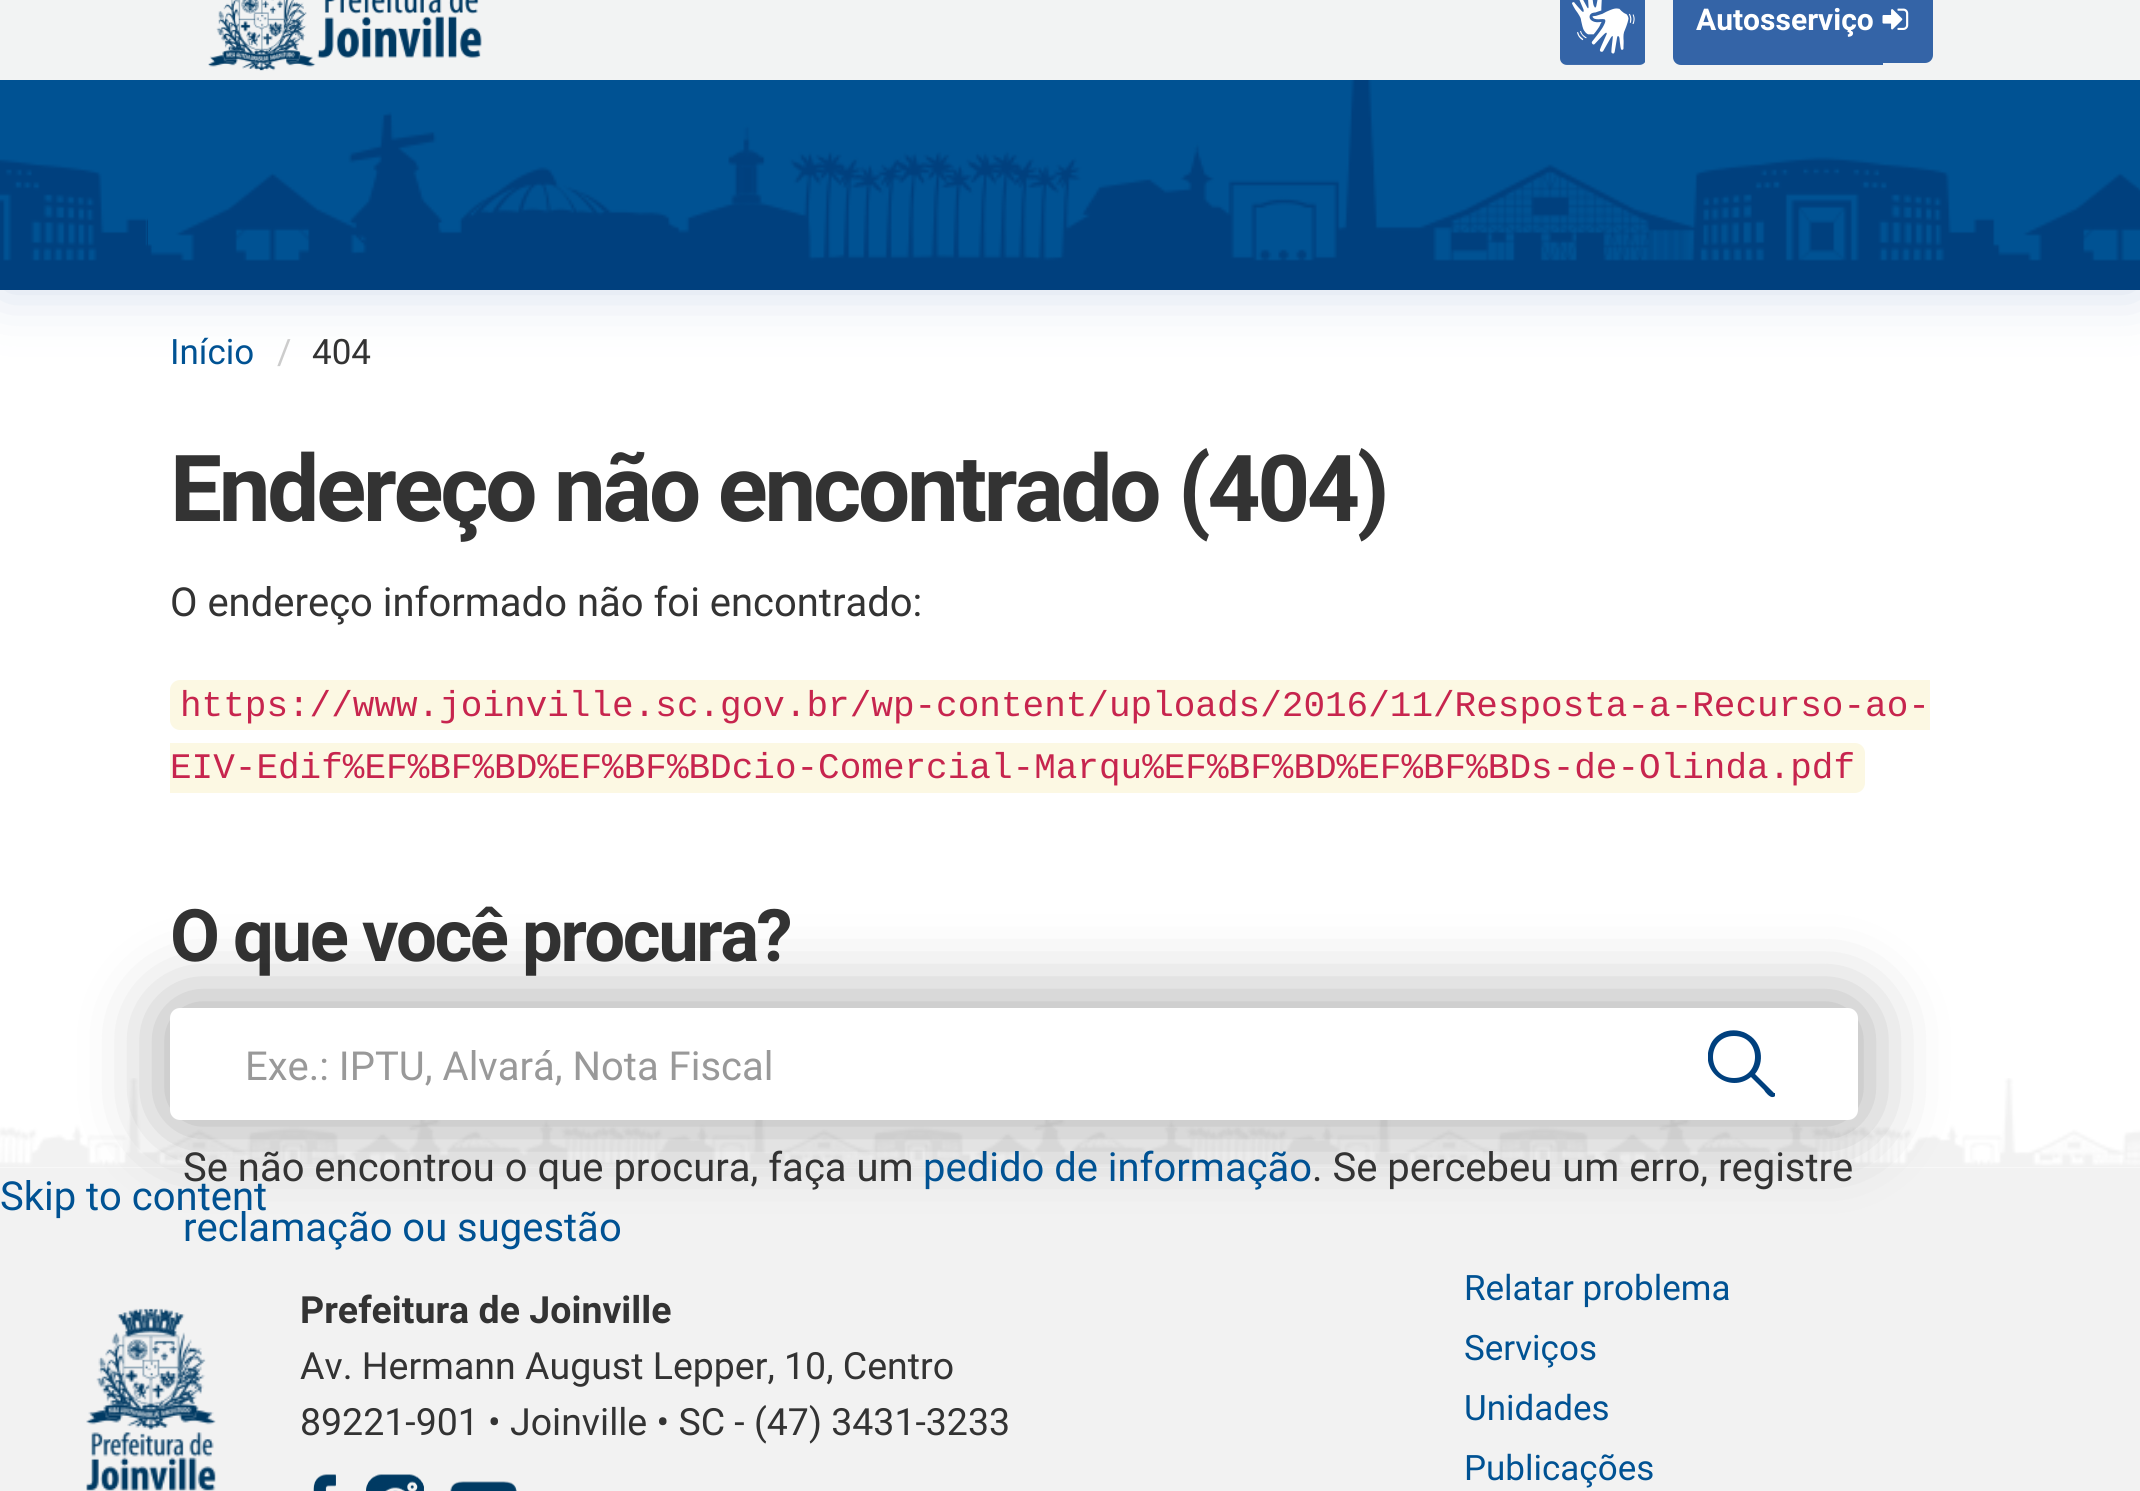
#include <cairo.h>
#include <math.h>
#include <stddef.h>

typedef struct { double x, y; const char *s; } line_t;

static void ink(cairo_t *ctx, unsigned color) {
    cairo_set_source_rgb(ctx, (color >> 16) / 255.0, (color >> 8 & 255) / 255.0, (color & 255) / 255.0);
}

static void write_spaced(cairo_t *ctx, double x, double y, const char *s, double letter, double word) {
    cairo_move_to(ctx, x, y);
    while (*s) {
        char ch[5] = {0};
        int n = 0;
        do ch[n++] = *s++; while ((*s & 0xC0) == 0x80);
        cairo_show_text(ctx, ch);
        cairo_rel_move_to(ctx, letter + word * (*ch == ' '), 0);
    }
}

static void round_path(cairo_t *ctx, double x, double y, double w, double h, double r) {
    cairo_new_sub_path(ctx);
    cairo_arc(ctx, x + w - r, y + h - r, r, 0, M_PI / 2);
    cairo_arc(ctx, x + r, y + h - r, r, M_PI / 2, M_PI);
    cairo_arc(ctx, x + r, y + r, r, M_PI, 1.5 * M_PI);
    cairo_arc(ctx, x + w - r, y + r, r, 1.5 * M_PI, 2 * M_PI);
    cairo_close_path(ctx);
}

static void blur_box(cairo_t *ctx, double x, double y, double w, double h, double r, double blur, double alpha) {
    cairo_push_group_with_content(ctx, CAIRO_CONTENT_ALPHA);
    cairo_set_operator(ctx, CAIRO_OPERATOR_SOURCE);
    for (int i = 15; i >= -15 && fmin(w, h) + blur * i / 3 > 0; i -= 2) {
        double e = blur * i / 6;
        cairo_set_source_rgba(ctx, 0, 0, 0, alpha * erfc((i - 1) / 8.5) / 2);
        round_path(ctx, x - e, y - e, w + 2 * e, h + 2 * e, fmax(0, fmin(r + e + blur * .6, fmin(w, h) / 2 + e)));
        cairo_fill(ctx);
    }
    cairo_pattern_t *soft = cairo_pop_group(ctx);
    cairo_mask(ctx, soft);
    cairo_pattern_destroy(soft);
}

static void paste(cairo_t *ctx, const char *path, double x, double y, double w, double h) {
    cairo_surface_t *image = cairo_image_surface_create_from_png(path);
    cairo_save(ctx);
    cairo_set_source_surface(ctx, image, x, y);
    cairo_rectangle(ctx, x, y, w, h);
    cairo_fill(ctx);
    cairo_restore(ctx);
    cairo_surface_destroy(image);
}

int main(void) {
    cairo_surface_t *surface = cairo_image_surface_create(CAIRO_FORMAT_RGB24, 2140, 1491);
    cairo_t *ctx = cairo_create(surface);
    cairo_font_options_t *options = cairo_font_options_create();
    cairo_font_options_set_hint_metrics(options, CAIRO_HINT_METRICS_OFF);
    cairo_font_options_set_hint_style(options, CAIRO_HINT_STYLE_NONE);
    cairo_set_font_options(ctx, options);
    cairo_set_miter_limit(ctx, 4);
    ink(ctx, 0xFFFFFF);
    cairo_paint(ctx);
    ink(ctx, 0x3464A7);
    blur_box(ctx, 0, 65, 2140, 225, 0, 31, 0.23);
    ink(ctx, 0x005293);
    cairo_rectangle(ctx, 0, 80, 2140, 181);
    cairo_fill(ctx);
    paste(ctx, "media/1.png", 0, 80, 2140, 210);
    ink(ctx, 0xF2F3F3);
    cairo_rectangle(ctx, 0, 0, 2140, 80);
    cairo_fill(ctx);
    paste(ctx, "media/2.png", 208, 0, 274, 71);
    paste(ctx, "media/3.png", 1560, 0, 85, 65);
    ink(ctx, 0x3464A7);
    cairo_new_path(ctx);
    cairo_move_to(ctx, 1681, -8);
    cairo_line_to(ctx, 1883, -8);
    cairo_line_to(ctx, 1883, 65);
    cairo_line_to(ctx, 1681, 65);
    cairo_curve_to(ctx, 1676.5, 65, 1673, 61.5, 1673, 57);
    cairo_line_to(ctx, 1673, 0);
    cairo_curve_to(ctx, 1673, -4.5, 1676.5, -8, 1681, -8);
    cairo_close_path(ctx);
    cairo_fill(ctx);
    cairo_new_path(ctx);
    cairo_move_to(ctx, 1883, -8);
    cairo_line_to(ctx, 1925, -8);
    cairo_curve_to(ctx, 1929.5, -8, 1933, -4.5, 1933, 0);
    cairo_line_to(ctx, 1933, 55);
    cairo_curve_to(ctx, 1933, 59.5, 1929.5, 63, 1925, 63);
    cairo_line_to(ctx, 1883, 63);
    cairo_close_path(ctx);
    cairo_fill(ctx);
    cairo_select_font_face(ctx, "Roboto", CAIRO_FONT_SLANT_NORMAL, CAIRO_FONT_WEIGHT_BOLD);
    cairo_set_font_size(ctx, 30);
    ink(ctx, 0xFFFFFF);
    cairo_move_to(ctx, 1696, 30);
    cairo_show_text(ctx, "Autosserviço");
    paste(ctx, "media/4.png", 1882, 8, 27, 22);
    cairo_select_font_face(ctx, "Roboto", CAIRO_FONT_SLANT_NORMAL, CAIRO_FONT_WEIGHT_NORMAL);
    cairo_set_font_size(ctx, 35);
    ink(ctx, 0x005293);
    cairo_move_to(ctx, 170, 364);
    cairo_show_text(ctx, "Início");
    ink(ctx, 0xCCCCCC);
    cairo_move_to(ctx, 277, 364);
    cairo_show_text(ctx, "/");
    ink(ctx, 0x333333);
    cairo_move_to(ctx, 312, 364);
    cairo_show_text(ctx, "404");
    ink(ctx, 0xF2F2F2);
    cairo_rectangle(ctx, 0, 1168, 2140, 323);
    cairo_fill(ctx);
    cairo_set_font_size(ctx, 40);
    ink(ctx, 0x005293);
    cairo_move_to(ctx, 0, 1210);
    cairo_show_text(ctx, "Skip to content");
    cairo_select_font_face(ctx, "Roboto", CAIRO_FONT_SLANT_NORMAL, CAIRO_FONT_WEIGHT_BOLD);
    cairo_set_font_size(ctx, 92.5);
    ink(ctx, 0x333333);
    write_spaced(ctx, 170, 521, "Endereço não encontrado (404)", -3.25, 0);
    cairo_select_font_face(ctx, "Roboto", CAIRO_FONT_SLANT_NORMAL, CAIRO_FONT_WEIGHT_NORMAL);
    cairo_set_font_size(ctx, 40);
    cairo_move_to(ctx, 170, 616);
    cairo_show_text(ctx, "O endereço informado não foi encontrado:");
    ink(ctx, 0xFCF8E3);
    cairo_new_path(ctx);
    cairo_move_to(ctx, 180, 680);
    cairo_line_to(ctx, 1930, 680);
    cairo_line_to(ctx, 1930, 730);
    cairo_line_to(ctx, 180, 730);
    cairo_curve_to(ctx, 174.5, 730, 170, 725.5, 170, 720);
    cairo_line_to(ctx, 170, 690);
    cairo_curve_to(ctx, 170, 684.5, 174.5, 680, 180, 680);
    cairo_close_path(ctx);
    cairo_fill(ctx);
    cairo_select_font_face(ctx, "Liberation Mono", CAIRO_FONT_SLANT_NORMAL, CAIRO_FONT_WEIGHT_NORMAL);
    cairo_set_font_size(ctx, 36);
    ink(ctx, 0xC7254E);
    cairo_move_to(ctx, 180, 716);
    cairo_show_text(ctx, "https://www.joinville.sc.gov.br/wp-content/uploads/2016/11/Resposta-a-Recurso-ao-");
    ink(ctx, 0xFCF8E3);
    cairo_new_path(ctx);
    cairo_move_to(ctx, 170, 743);
    cairo_line_to(ctx, 1855, 743);
    cairo_curve_to(ctx, 1860.5, 743, 1865, 747.5, 1865, 753);
    cairo_line_to(ctx, 1865, 783);
    cairo_curve_to(ctx, 1865, 788.5, 1860.5, 793, 1855, 793);
    cairo_line_to(ctx, 170, 793);
    cairo_close_path(ctx);
    cairo_fill(ctx);
    ink(ctx, 0xC7254E);
    cairo_move_to(ctx, 170, 778);
    cairo_show_text(ctx, "EIV-Edif%EF%BF%BD%EF%BF%BDcio-Comercial-Marqu%EF%BF%BD%EF%BF%BDs-de-Olinda.pdf");
    cairo_select_font_face(ctx, "Roboto", CAIRO_FONT_SLANT_NORMAL, CAIRO_FONT_WEIGHT_BOLD);
    cairo_set_font_size(ctx, 72.5);
    ink(ctx, 0x333333);
    write_spaced(ctx, 170, 961, "O que você procura?", -2.5, 0);
    paste(ctx, "media/5.png", 0, 1078, 2140, 90);
    ink(ctx, 0x000000);
    blur_box(ctx, 158, 995, 1712, 138, 23, 37.5, 0.3);
    ink(ctx, 0xFFFFFF);
    round_path(ctx, 170, 1008, 1688, 112, 10);
    cairo_fill(ctx);
    cairo_select_font_face(ctx, "Roboto", CAIRO_FONT_SLANT_NORMAL, CAIRO_FONT_WEIGHT_NORMAL);
    cairo_set_font_size(ctx, 40);
    ink(ctx, 0x999999);
    cairo_move_to(ctx, 245, 1080);
    cairo_show_text(ctx, "Exe.: IPTU, Alvará, Nota Fiscal");
    cairo_save(ctx);
    cairo_rectangle(ctx, 1708, 1030, 67, 68);
    cairo_clip(ctx);
    ink(ctx, 0x00407E);
    cairo_new_path(ctx);
    cairo_move_to(ctx, 1774, 1093);
    cairo_line_to(ctx, 1755, 1074);
    cairo_curve_to(ctx, 1765, 1062, 1762, 1043, 1749, 1035);
    cairo_curve_to(ctx, 1742, 1030, 1732, 1029, 1724, 1032);
    cairo_curve_to(ctx, 1717, 1035, 1712, 1040, 1710, 1046);
    cairo_curve_to(ctx, 1699, 1072, 1730, 1094, 1751, 1077);
    cairo_line_to(ctx, 1764, 1090);
    cairo_curve_to(ctx, 1765, 1092, 1770, 1098, 1773, 1097);
    cairo_curve_to(ctx, 1775, 1097, 1776, 1095, 1775, 1093);
    cairo_close_path(ctx);
    cairo_move_to(ctx, 1734, 1078);
    cairo_curve_to(ctx, 1706, 1078, 1706, 1036, 1734, 1036);
    cairo_curve_to(ctx, 1762, 1036, 1762, 1078, 1734, 1078);
    cairo_close_path(ctx);
    cairo_fill(ctx);
    cairo_restore(ctx);
    ink(ctx, 0x333333);
    cairo_move_to(ctx, 183, 1181);
    cairo_show_text(ctx, "Se não encontrou o que procura, faça um");
    ink(ctx, 0x005293);
    cairo_move_to(ctx, 923, 1181);
    cairo_show_text(ctx, "pedido de informação");
    ink(ctx, 0x333333);
    cairo_move_to(ctx, 1312, 1181);
    cairo_show_text(ctx, ". Se percebeu um erro, registre");
    ink(ctx, 0x005293);
    cairo_move_to(ctx, 183, 1241);
    cairo_show_text(ctx, "reclamação ou sugestão");
    paste(ctx, "media/6.png", 86, 1308, 130, 183);
    cairo_select_font_face(ctx, "Roboto", CAIRO_FONT_SLANT_NORMAL, CAIRO_FONT_WEIGHT_BOLD);
    cairo_set_font_size(ctx, 37.5);
    ink(ctx, 0x333333);
    cairo_move_to(ctx, 300, 1323);
    cairo_show_text(ctx, "Prefeitura de Joinville");
    cairo_select_font_face(ctx, "Roboto", CAIRO_FONT_SLANT_NORMAL, CAIRO_FONT_WEIGHT_NORMAL);
    cairo_move_to(ctx, 300, 1379);
    cairo_show_text(ctx, "Av. Hermann August Lepper, 10, Centro");
    cairo_move_to(ctx, 300, 1435);
    cairo_show_text(ctx, "89221-901 • Joinville • SC - (47) 3431-3233");
    paste(ctx, "media/7.png", 313, 1474, 23, 17);
    paste(ctx, "media/8.png", 366, 1474, 58, 17);
    paste(ctx, "media/9.png", 450, 1481, 67, 10);
    cairo_set_font_size(ctx, 35);
    ink(ctx, 0x005293);
    {
        static const line_t items[] = {
            {1464, 1300, "Relatar problema"},
            {1464, 1360, "Serviços"},
            {1464, 1420, "Unidades"},
            {1464, 1480, "Publicações"},
        };
        for (size_t i = 0; i < sizeof items / sizeof *items; i++) {
            cairo_move_to(ctx, items[i].x, items[i].y);
            cairo_show_text(ctx, items[i].s);
        }
    }
    cairo_surface_write_to_png(surface, "image.png");
    cairo_font_options_destroy(options);
    cairo_destroy(ctx);
    cairo_surface_destroy(surface);
    return 0;
}
